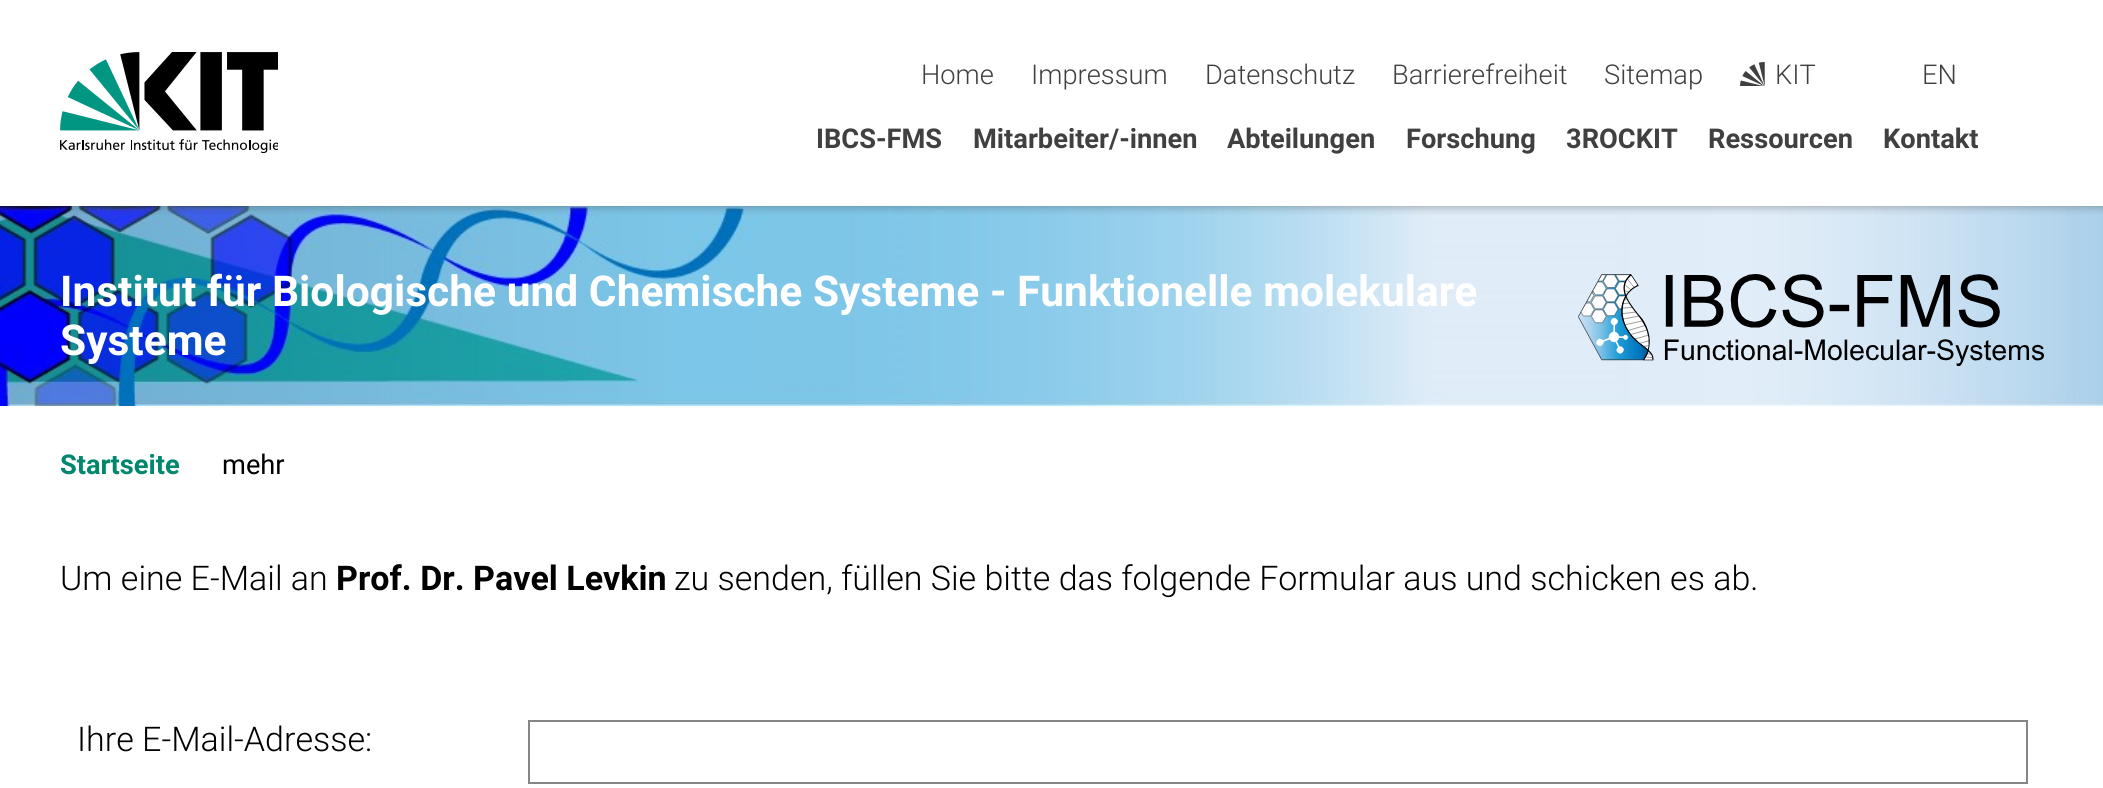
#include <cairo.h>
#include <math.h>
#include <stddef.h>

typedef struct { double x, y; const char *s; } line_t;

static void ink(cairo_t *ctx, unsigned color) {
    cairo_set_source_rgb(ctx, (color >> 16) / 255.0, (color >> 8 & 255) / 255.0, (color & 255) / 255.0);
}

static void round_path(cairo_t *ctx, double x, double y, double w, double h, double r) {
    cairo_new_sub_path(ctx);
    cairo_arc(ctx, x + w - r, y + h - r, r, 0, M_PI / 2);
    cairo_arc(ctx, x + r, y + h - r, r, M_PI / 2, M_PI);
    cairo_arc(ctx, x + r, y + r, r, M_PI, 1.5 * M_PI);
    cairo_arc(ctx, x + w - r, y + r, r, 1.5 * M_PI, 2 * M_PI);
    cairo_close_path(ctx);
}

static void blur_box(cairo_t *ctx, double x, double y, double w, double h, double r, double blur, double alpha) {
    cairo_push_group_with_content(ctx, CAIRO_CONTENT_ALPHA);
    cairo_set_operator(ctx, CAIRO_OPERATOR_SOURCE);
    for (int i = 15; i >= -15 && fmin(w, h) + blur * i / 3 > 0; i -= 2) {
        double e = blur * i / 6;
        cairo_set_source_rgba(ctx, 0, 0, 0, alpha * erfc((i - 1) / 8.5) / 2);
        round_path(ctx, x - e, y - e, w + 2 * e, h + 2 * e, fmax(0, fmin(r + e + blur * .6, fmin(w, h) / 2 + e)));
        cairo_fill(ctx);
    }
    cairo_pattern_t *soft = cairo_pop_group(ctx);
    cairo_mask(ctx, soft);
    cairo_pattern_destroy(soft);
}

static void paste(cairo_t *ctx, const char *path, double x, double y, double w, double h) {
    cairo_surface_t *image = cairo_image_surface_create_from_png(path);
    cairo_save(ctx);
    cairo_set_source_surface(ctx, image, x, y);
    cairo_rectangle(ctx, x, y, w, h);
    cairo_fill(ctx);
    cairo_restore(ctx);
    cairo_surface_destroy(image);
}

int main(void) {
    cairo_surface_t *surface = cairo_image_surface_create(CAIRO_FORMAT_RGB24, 2103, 788);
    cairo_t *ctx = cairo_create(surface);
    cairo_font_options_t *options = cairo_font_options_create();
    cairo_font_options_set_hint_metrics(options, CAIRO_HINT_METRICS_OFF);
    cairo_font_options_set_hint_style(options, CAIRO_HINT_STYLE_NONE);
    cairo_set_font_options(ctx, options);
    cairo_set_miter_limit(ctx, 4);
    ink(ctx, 0xFFFFFF);
    cairo_paint(ctx);
    paste(ctx, "media/3.png", 0, 206, 2103, 200);
    cairo_save(ctx);
    cairo_rectangle(ctx, 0, 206, 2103, 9);
    cairo_clip(ctx);
    ink(ctx, 0x404040);
    blur_box(ctx, 0, 0, 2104, 206, 0, 5, 0.5);
    cairo_restore(ctx);
    paste(ctx, "media/1.png", 60, 52, 218, 101);
    cairo_select_font_face(ctx, "Roboto Light", CAIRO_FONT_SLANT_NORMAL, CAIRO_FONT_WEIGHT_NORMAL);
    cairo_set_font_size(ctx, 27.25);
    ink(ctx, 0x404040);
    {
        static const line_t items[] = {
            {921, 84, "Home"},
            {1031, 84, "Impressum"},
            {1205, 84, "Datenschutz"},
            {1392, 84, "Barrierefreiheit"},
            {1604, 84, "Sitemap"},
        };
        for (size_t i = 0; i < sizeof items / sizeof *items; i++) {
            cairo_move_to(ctx, items[i].x, items[i].y);
            cairo_show_text(ctx, items[i].s);
        }
    }
    paste(ctx, "media/2.png", 1740, 62, 25, 24);
    cairo_move_to(ctx, 1775, 84);
    cairo_show_text(ctx, "KIT");
    cairo_move_to(ctx, 1922, 84);
    cairo_show_text(ctx, "EN");
    cairo_select_font_face(ctx, "Roboto", CAIRO_FONT_SLANT_NORMAL, CAIRO_FONT_WEIGHT_BOLD);
    {
        static const line_t items[] = {
            {816, 148, "IBCS-FMS"},
            {973, 148, "Mitarbeiter/-innen"},
            {1227, 148, "Abteilungen"},
            {1406, 148, "Forschung"},
            {1566, 148, "3ROCKIT"},
            {1708, 148, "Ressourcen"},
            {1883, 148, "Kontakt"},
        };
        for (size_t i = 0; i < sizeof items / sizeof *items; i++) {
            cairo_move_to(ctx, items[i].x, items[i].y);
            cairo_show_text(ctx, items[i].s);
        }
    }
    cairo_set_font_size(ctx, 42.5);
    ink(ctx, 0xFFFFFF);
    cairo_move_to(ctx, 60, 306);
    cairo_show_text(ctx, "Institut für Biologische und Chemische Systeme - Funktionelle molekulare");
    cairo_move_to(ctx, 60, 355);
    cairo_show_text(ctx, "Systeme");
    paste(ctx, "media/4.png", 1578, 274, 466, 92);
    cairo_set_font_size(ctx, 27.25);
    ink(ctx, 0x00876C);
    cairo_move_to(ctx, 60, 474);
    cairo_show_text(ctx, "Startseite");
    cairo_select_font_face(ctx, "Roboto", CAIRO_FONT_SLANT_NORMAL, CAIRO_FONT_WEIGHT_NORMAL);
    ink(ctx, 0x000000);
    cairo_move_to(ctx, 222, 474);
    cairo_show_text(ctx, "mehr");
    cairo_select_font_face(ctx, "Roboto Light", CAIRO_FONT_SLANT_NORMAL, CAIRO_FONT_WEIGHT_NORMAL);
    cairo_set_font_size(ctx, 34);
    cairo_move_to(ctx, 60, 590);
    cairo_show_text(ctx, "Um eine E-Mail an");
    cairo_select_font_face(ctx, "Roboto", CAIRO_FONT_SLANT_NORMAL, CAIRO_FONT_WEIGHT_BOLD);
    cairo_move_to(ctx, 336, 590);
    cairo_show_text(ctx, "Prof. Dr. Pavel Levkin");
    cairo_select_font_face(ctx, "Roboto Light", CAIRO_FONT_SLANT_NORMAL, CAIRO_FONT_WEIGHT_NORMAL);
    cairo_move_to(ctx, 674, 590);
    cairo_show_text(ctx, "zu senden, füllen Sie bitte das folgende Formular aus und schicken es ab.");
    cairo_move_to(ctx, 77, 751);
    cairo_show_text(ctx, "Ihre E-Mail-Adresse:");
    cairo_rectangle(ctx, 529, 721, 1498, 62);
    ink(ctx, 0x868686);
    cairo_stroke(ctx);
    cairo_surface_write_to_png(surface, "image.png");
    cairo_font_options_destroy(options);
    cairo_destroy(ctx);
    cairo_surface_destroy(surface);
    return 0;
}
